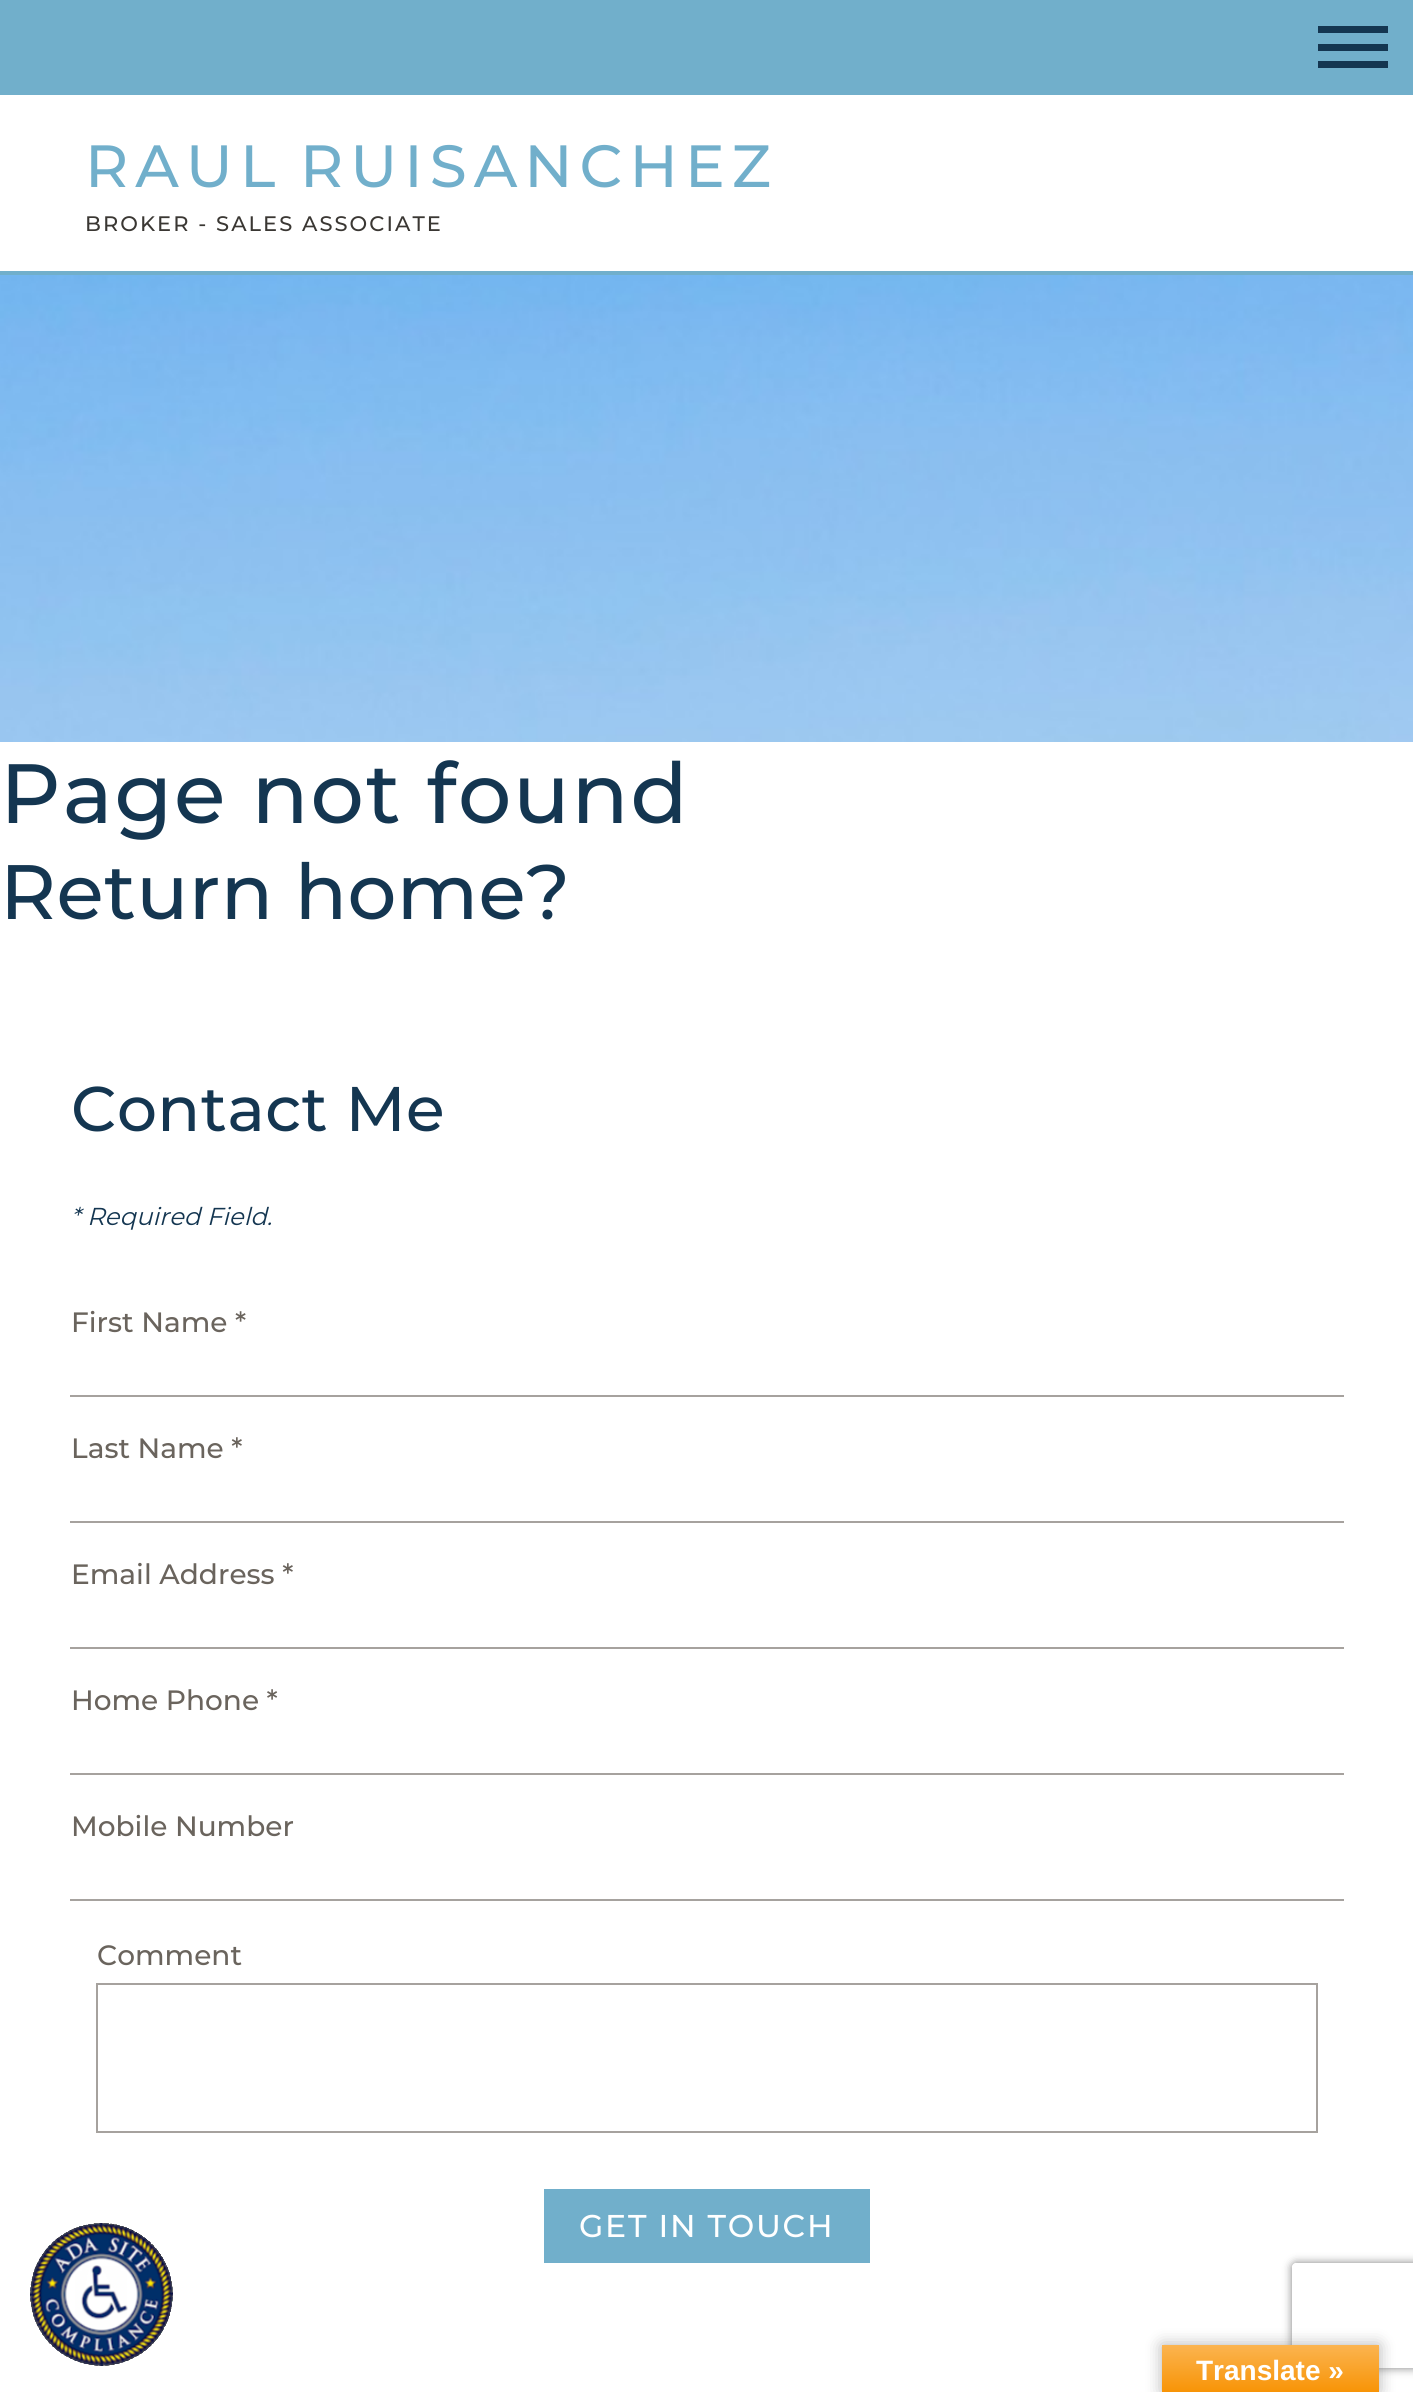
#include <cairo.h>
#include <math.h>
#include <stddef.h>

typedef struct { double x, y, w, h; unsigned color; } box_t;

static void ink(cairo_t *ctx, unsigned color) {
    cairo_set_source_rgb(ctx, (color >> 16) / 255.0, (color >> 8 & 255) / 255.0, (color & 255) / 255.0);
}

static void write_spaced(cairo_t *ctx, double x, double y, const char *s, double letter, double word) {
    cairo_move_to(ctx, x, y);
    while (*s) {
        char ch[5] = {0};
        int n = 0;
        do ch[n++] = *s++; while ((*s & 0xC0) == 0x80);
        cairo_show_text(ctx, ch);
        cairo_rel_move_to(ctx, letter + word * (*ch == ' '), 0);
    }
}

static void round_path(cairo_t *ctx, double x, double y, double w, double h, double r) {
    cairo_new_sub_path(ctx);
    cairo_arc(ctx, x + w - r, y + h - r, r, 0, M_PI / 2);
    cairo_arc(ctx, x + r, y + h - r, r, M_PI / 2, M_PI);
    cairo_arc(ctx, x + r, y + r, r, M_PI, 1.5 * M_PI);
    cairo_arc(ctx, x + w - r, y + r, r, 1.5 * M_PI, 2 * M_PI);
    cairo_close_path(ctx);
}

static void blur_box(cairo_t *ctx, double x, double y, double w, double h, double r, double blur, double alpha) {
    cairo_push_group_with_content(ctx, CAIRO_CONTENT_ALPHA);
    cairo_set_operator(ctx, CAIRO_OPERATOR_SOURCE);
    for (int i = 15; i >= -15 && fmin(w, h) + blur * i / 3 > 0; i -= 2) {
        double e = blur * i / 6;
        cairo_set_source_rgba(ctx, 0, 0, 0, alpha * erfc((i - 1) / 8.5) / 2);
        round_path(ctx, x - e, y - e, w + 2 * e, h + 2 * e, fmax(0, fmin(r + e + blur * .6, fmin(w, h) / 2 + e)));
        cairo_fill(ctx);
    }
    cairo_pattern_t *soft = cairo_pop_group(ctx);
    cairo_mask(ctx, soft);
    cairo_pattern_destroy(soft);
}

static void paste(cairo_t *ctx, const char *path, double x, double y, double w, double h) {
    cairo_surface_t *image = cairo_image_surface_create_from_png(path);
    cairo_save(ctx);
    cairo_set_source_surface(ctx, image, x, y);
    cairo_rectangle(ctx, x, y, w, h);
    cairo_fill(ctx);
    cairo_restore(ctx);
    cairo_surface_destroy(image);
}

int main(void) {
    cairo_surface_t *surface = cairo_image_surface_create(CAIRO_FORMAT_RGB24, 1413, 2392);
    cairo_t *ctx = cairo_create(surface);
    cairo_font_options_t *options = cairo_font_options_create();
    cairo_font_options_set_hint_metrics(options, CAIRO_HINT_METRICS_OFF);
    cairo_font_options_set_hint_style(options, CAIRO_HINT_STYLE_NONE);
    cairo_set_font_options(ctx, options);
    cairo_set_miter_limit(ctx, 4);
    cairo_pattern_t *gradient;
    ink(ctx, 0xFFFFFF);
    cairo_paint(ctx);
    {
        static const box_t items[] = {
            {0, 0, 1413, 95, 0x71AFCB},
            {1318, 44, 70, 7, 0x143651},
            {1318, 26, 70, 7, 0x143651},
            {1318, 61, 70, 7, 0x143651},
            {0, 271, 1413, 4, 0x71AFCB},
        };
        for (size_t i = 0; i < sizeof items / sizeof *items; i++) {
            ink(ctx, items[i].color);
            cairo_rectangle(ctx, items[i].x, items[i].y, items[i].w, items[i].h);
            cairo_fill(ctx);
        }
    }
    cairo_select_font_face(ctx, "Montserrat Medium", CAIRO_FONT_SLANT_NORMAL, CAIRO_FONT_WEIGHT_NORMAL);
    cairo_set_font_size(ctx, 59.5);
    write_spaced(ctx, 85, 187, "RAUL", 7, 0);
    write_spaced(ctx, 300, 187, "RUISANCHEZ", 7, 0);
    cairo_set_font_size(ctx, 21);
    ink(ctx, 0x3A3733);
    write_spaced(ctx, 85, 231, "BROKER - SALES ASSOCIATE", 2.05, 0);
    cairo_set_font_size(ctx, 84);
    ink(ctx, 0x143651);
    write_spaced(ctx, 0, 823, "Page not found", 1.75, 0);
    cairo_set_font_size(ctx, 77);
    write_spaced(ctx, 0, 919, "Return home?", 0.4, 0);
    cairo_set_font_size(ctx, 63);
    write_spaced(ctx, 71, 1131, "Contact Me", 0.4, 0);
    cairo_select_font_face(ctx, "Montserrat", CAIRO_FONT_SLANT_ITALIC, CAIRO_FONT_WEIGHT_NORMAL);
    cairo_set_font_size(ctx, 24.5);
    cairo_move_to(ctx, 71, 1225);
    cairo_show_text(ctx, "* Required Field.");
    cairo_select_font_face(ctx, "Montserrat Medium", CAIRO_FONT_SLANT_NORMAL, CAIRO_FONT_WEIGHT_NORMAL);
    cairo_set_font_size(ctx, 28);
    ink(ctx, 0x6A645D);
    cairo_move_to(ctx, 71, 1332);
    cairo_show_text(ctx, "First Name *");
    ink(ctx, 0xA6A29E);
    cairo_rectangle(ctx, 70, 1395, 1274, 2);
    cairo_fill(ctx);
    ink(ctx, 0x6A645D);
    cairo_move_to(ctx, 71, 1458);
    cairo_show_text(ctx, "Last Name *");
    ink(ctx, 0xA6A29E);
    cairo_rectangle(ctx, 70, 1521, 1274, 2);
    cairo_fill(ctx);
    ink(ctx, 0x6A645D);
    cairo_move_to(ctx, 71, 1584);
    cairo_show_text(ctx, "Email Address *");
    ink(ctx, 0xA6A29E);
    cairo_rectangle(ctx, 70, 1647, 1274, 2);
    cairo_fill(ctx);
    ink(ctx, 0x6A645D);
    cairo_move_to(ctx, 71, 1710);
    cairo_show_text(ctx, "Home Phone *");
    ink(ctx, 0xA6A29E);
    cairo_rectangle(ctx, 70, 1773, 1274, 2);
    cairo_fill(ctx);
    ink(ctx, 0x6A645D);
    cairo_move_to(ctx, 71, 1836);
    cairo_show_text(ctx, "Mobile Number");
    ink(ctx, 0xA6A29E);
    cairo_rectangle(ctx, 70, 1899, 1274, 2);
    cairo_fill(ctx);
    ink(ctx, 0x6A645D);
    cairo_move_to(ctx, 97, 1965);
    cairo_show_text(ctx, "Comment");
    cairo_rectangle(ctx, 97, 1984, 1220, 148);
    ink(ctx, 0xA6A29E);
    cairo_stroke(ctx);
    ink(ctx, 0x71AFCB);
    cairo_rectangle(ctx, 544, 2189, 326, 74);
    cairo_fill(ctx);
    cairo_set_font_size(ctx, 31.5);
    ink(ctx, 0xFFFFFF);
    write_spaced(ctx, 579, 2237, "GET IN TOUCH", 1.75, 0);
    paste(ctx, "media/1.png", 0, 275, 1413, 2091);
    paste(ctx, "media/2.png", 30, 2223, 143, 143);
    paste(ctx, "media/3.png", 30, 2223, 143, 143);
    paste(ctx, "media/4.png", 30, 2223, 143, 143);
    paste(ctx, "media/5.png", 30, 2223, 143, 143);
    paste(ctx, "media/6.png", 30, 2223, 143, 143);
    ink(ctx, 0x000000);
    blur_box(ctx, 1162, 2345, 217, 47, 0, 8, 0.3);
    cairo_save(ctx);
    cairo_set_fill_rule(ctx, CAIRO_FILL_RULE_EVEN_ODD);
    cairo_new_path(ctx);
    cairo_move_to(ctx, 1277, 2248);
    cairo_line_to(ctx, 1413, 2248);
    cairo_line_to(ctx, 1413, 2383);
    cairo_line_to(ctx, 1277, 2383);
    cairo_close_path(ctx);
    cairo_move_to(ctx, 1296, 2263);
    cairo_line_to(ctx, 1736, 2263);
    cairo_curve_to(ctx, 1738, 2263, 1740, 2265, 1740, 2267);
    cairo_line_to(ctx, 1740, 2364);
    cairo_curve_to(ctx, 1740, 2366, 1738, 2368, 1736, 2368);
    cairo_line_to(ctx, 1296, 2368);
    cairo_curve_to(ctx, 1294, 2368, 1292, 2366, 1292, 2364);
    cairo_line_to(ctx, 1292, 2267);
    cairo_curve_to(ctx, 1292, 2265, 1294, 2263, 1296, 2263);
    cairo_close_path(ctx);
    cairo_clip(ctx);
    ink(ctx, 0x808080);
    blur_box(ctx, 1292, 2263, 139, 105, 4, 4.5, 1);
    cairo_restore(ctx);
    gradient = cairo_pattern_create_linear(1271, 2345, 1271, 2392);
    cairo_pattern_add_color_stop_rgba(gradient, 0, 0.984, 0.706, 0.314, 1);
    cairo_pattern_add_color_stop_rgba(gradient, 1, 0.973, 0.58, 0.024, 1);
    cairo_set_source(ctx, gradient);
    cairo_pattern_destroy(gradient);
    cairo_rectangle(ctx, 1162, 2345, 217, 47);
    cairo_fill(ctx);
    cairo_select_font_face(ctx, "Liberation Sans", CAIRO_FONT_SLANT_NORMAL, CAIRO_FONT_WEIGHT_BOLD);
    cairo_set_font_size(ctx, 28);
    ink(ctx, 0xFFFFFF);
    cairo_move_to(ctx, 1196, 2380);
    cairo_show_text(ctx, "Translate »");
    cairo_surface_write_to_png(surface, "image.png");
    cairo_font_options_destroy(options);
    cairo_destroy(ctx);
    cairo_surface_destroy(surface);
    return 0;
}
